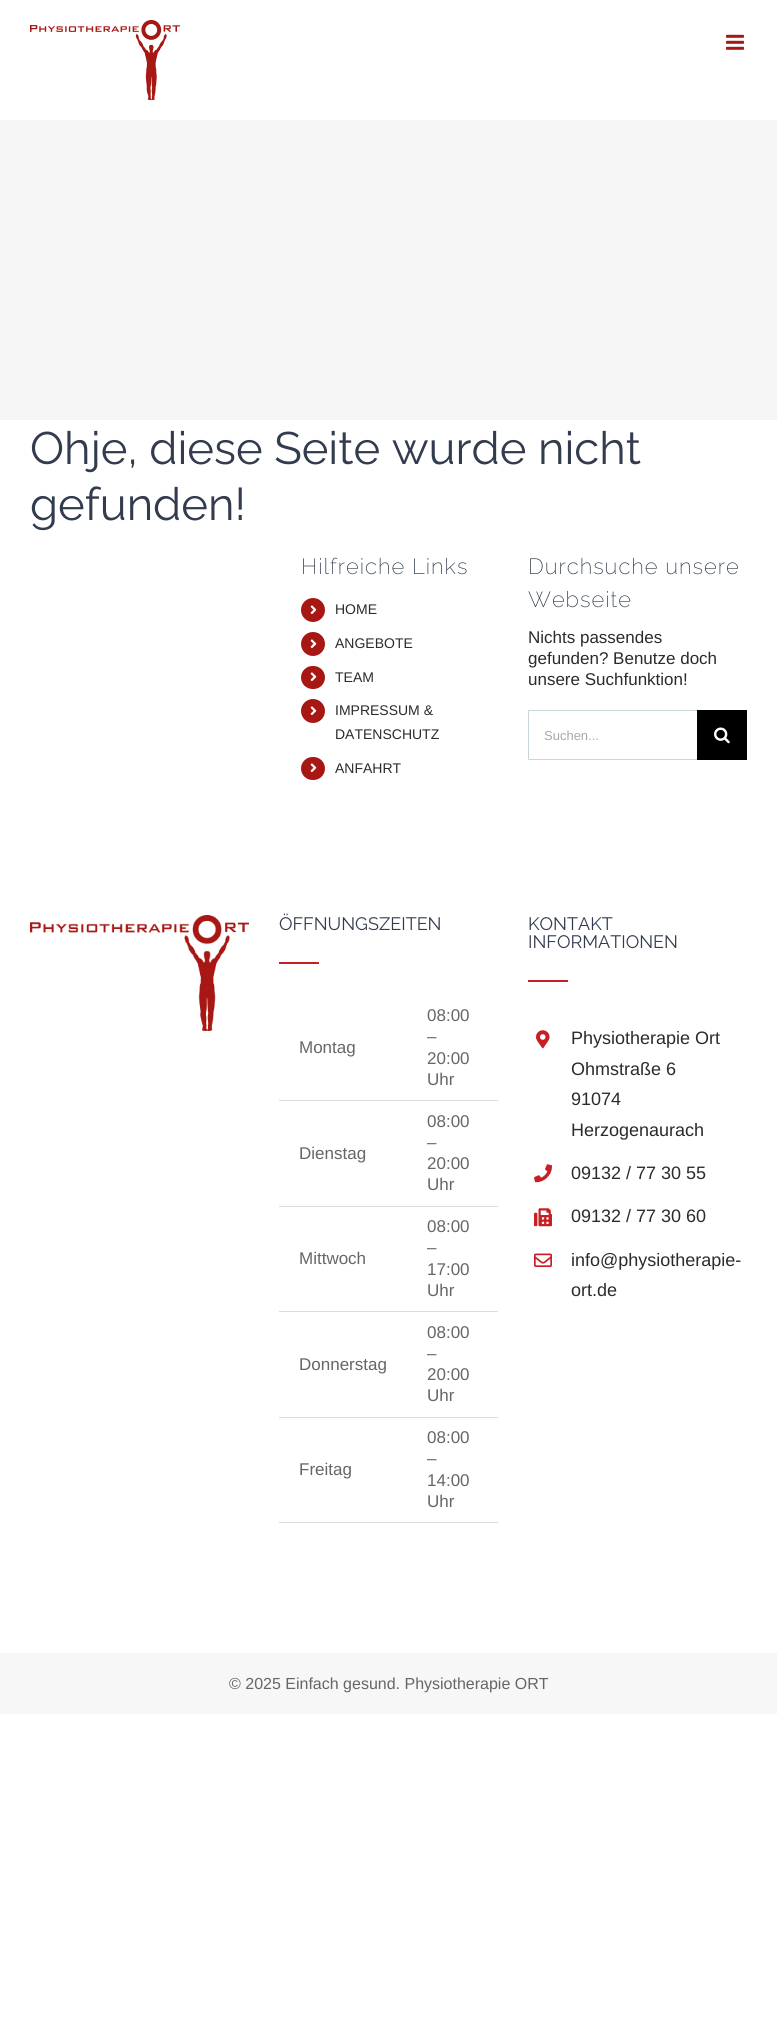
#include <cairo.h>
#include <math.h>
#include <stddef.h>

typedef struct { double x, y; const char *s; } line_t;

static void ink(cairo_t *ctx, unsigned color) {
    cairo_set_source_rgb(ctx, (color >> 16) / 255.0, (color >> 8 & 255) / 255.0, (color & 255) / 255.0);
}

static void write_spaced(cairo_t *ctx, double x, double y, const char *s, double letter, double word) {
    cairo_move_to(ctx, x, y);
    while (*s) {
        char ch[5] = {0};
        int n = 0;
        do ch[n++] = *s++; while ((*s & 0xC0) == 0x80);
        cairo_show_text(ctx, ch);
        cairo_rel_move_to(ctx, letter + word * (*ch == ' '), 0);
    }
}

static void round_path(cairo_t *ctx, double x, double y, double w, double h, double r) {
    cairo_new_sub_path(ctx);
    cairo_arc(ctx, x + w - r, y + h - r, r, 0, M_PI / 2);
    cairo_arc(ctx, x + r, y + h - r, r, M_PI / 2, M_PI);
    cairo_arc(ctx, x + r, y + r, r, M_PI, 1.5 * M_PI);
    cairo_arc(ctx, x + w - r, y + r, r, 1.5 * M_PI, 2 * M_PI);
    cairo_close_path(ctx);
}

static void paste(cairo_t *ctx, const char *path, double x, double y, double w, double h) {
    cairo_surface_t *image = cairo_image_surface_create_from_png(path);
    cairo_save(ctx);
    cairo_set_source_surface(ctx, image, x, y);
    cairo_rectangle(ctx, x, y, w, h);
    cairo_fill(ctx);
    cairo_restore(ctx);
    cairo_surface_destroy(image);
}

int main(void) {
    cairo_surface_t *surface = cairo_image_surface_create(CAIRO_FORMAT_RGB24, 777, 2026);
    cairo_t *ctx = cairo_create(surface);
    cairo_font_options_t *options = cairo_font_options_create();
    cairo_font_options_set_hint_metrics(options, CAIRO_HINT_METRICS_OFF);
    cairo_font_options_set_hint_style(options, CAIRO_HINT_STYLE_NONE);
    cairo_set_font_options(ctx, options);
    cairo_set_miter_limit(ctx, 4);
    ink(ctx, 0xFFFFFF);
    cairo_paint(ctx);
    paste(ctx, "media/1.png", 30, 20, 150, 80);
    paste(ctx, "media/2.png", 726, 34, 18, 16);
    ink(ctx, 0xF6F6F6);
    cairo_rectangle(ctx, 0, 120, 777, 300);
    cairo_fill(ctx);
    cairo_select_font_face(ctx, "Raleway", CAIRO_FONT_SLANT_NORMAL, CAIRO_FONT_WEIGHT_NORMAL);
    cairo_set_font_size(ctx, 45.4);
    ink(ctx, 0x333C4E);
    cairo_move_to(ctx, 30, 464);
    cairo_show_text(ctx, "Ohje, diese Seite wurde nicht");
    cairo_move_to(ctx, 30, 520);
    cairo_show_text(ctx, "gefunden!");
    cairo_select_font_face(ctx, "Raleway ExtraLight", CAIRO_FONT_SLANT_NORMAL, CAIRO_FONT_WEIGHT_NORMAL);
    cairo_set_font_size(ctx, 22);
    write_spaced(ctx, 301, 574, "Hilfreiche Links", 1, 0);
    ink(ctx, 0xA71714);
    cairo_new_path(ctx);
    cairo_arc(ctx, 313, 610, 12, 0, 2 * M_PI);
    cairo_fill(ctx);
    paste(ctx, "media/3.png", 310, 605, 7, 10);
    cairo_select_font_face(ctx, "Liberation Sans", CAIRO_FONT_SLANT_NORMAL, CAIRO_FONT_WEIGHT_NORMAL);
    cairo_set_font_size(ctx, 14);
    ink(ctx, 0x2B2B2B);
    cairo_move_to(ctx, 335, 614);
    cairo_show_text(ctx, "HOME");
    ink(ctx, 0xA71714);
    cairo_new_path(ctx);
    cairo_arc(ctx, 313, 644, 12, 0, 2 * M_PI);
    cairo_fill(ctx);
    paste(ctx, "media/3.png", 310, 639, 7, 10);
    ink(ctx, 0x2B2B2B);
    cairo_move_to(ctx, 335, 648);
    cairo_show_text(ctx, "ANGEBOTE");
    ink(ctx, 0xA71714);
    round_path(ctx, 301, 666, 24, 23, 11.5);
    cairo_fill(ctx);
    paste(ctx, "media/3.png", 310, 672, 7, 10);
    ink(ctx, 0x2B2B2B);
    cairo_move_to(ctx, 335, 682);
    cairo_show_text(ctx, "TEAM");
    ink(ctx, 0xA71714);
    cairo_new_path(ctx);
    cairo_arc(ctx, 313, 711, 12, 0, 2 * M_PI);
    cairo_fill(ctx);
    paste(ctx, "media/3.png", 310, 706, 7, 10);
    ink(ctx, 0x2B2B2B);
    cairo_move_to(ctx, 335, 715);
    cairo_show_text(ctx, "IMPRESSUM &");
    cairo_move_to(ctx, 335, 739);
    cairo_show_text(ctx, "DATENSCHUTZ");
    ink(ctx, 0xA71714);
    round_path(ctx, 301, 757, 24, 23, 11.5);
    cairo_fill(ctx);
    paste(ctx, "media/3.png", 310, 763, 7, 10);
    ink(ctx, 0x2B2B2B);
    cairo_move_to(ctx, 335, 773);
    cairo_show_text(ctx, "ANFAHRT");
    cairo_select_font_face(ctx, "Raleway ExtraLight", CAIRO_FONT_SLANT_NORMAL, CAIRO_FONT_WEIGHT_NORMAL);
    cairo_set_font_size(ctx, 22);
    ink(ctx, 0x333C4E);
    write_spaced(ctx, 528, 574, "Durchsuche unsere", 1, 0);
    write_spaced(ctx, 528, 607, "Webseite", 1, 0);
    cairo_select_font_face(ctx, "Liberation Sans", CAIRO_FONT_SLANT_NORMAL, CAIRO_FONT_WEIGHT_NORMAL);
    cairo_set_font_size(ctx, 17);
    ink(ctx, 0x2B2B2B);
    {
        static const line_t items[] = {
            {528, 643, "Nichts passendes"},
            {528, 664, "gefunden? Benutze doch"},
            {528, 685, "unsere Suchfunktion!"},
        };
        for (size_t i = 0; i < sizeof items / sizeof *items; i++) {
            cairo_move_to(ctx, items[i].x, items[i].y);
            cairo_show_text(ctx, items[i].s);
        }
    }
    ink(ctx, 0xC8D7D9);
    cairo_new_path(ctx);
    cairo_move_to(ctx, 528, 710);
    cairo_line_to(ctx, 697, 710);
    cairo_line_to(ctx, 697, 711);
    cairo_line_to(ctx, 529, 711);
    cairo_close_path(ctx);
    cairo_fill(ctx);
    cairo_new_path(ctx);
    cairo_move_to(ctx, 697, 760);
    cairo_line_to(ctx, 528, 760);
    cairo_line_to(ctx, 529, 759);
    cairo_line_to(ctx, 697, 759);
    cairo_close_path(ctx);
    cairo_fill(ctx);
    cairo_set_source_rgba(ctx, 0.718, 0.796, 0.808, 0.77);
    cairo_new_path(ctx);
    cairo_move_to(ctx, 528, 760);
    cairo_line_to(ctx, 528, 710);
    cairo_line_to(ctx, 529, 711);
    cairo_line_to(ctx, 529, 759);
    cairo_close_path(ctx);
    cairo_fill(ctx);
    cairo_set_font_size(ctx, 13);
    ink(ctx, 0xAAA9A9);
    cairo_move_to(ctx, 544, 740);
    cairo_show_text(ctx, "Suchen...");
    ink(ctx, 0x000000);
    cairo_rectangle(ctx, 697, 710, 50, 50);
    cairo_fill(ctx);
    paste(ctx, "media/4.png", 714, 727, 16, 17);
    paste(ctx, "media/5.png", 30, 915, 219, 116);
    cairo_select_font_face(ctx, "Raleway", CAIRO_FONT_SLANT_NORMAL, CAIRO_FONT_WEIGHT_NORMAL);
    cairo_set_font_size(ctx, 18);
    ink(ctx, 0x333C4E);
    cairo_move_to(ctx, 279, 930);
    cairo_show_text(ctx, "ÖFFNUNGSZEITEN");
    ink(ctx, 0xC81F26);
    cairo_rectangle(ctx, 279, 962, 40, 2);
    cairo_fill(ctx);
    cairo_select_font_face(ctx, "Liberation Sans", CAIRO_FONT_SLANT_NORMAL, CAIRO_FONT_WEIGHT_NORMAL);
    cairo_set_font_size(ctx, 17);
    ink(ctx, 0x666666);
    cairo_move_to(ctx, 299, 1053);
    cairo_show_text(ctx, "Montag");
    ink(ctx, 0xDCDCDC);
    cairo_rectangle(ctx, 279, 1100, 219, 1);
    cairo_fill(ctx);
    ink(ctx, 0x666666);
    {
        static const line_t items[] = {
            {427, 1021, "08:00"},
            {427, 1042, "–"},
            {427, 1064, "20:00"},
            {427, 1085, "Uhr"},
            {299, 1159, "Dienstag"},
        };
        for (size_t i = 0; i < sizeof items / sizeof *items; i++) {
            cairo_move_to(ctx, items[i].x, items[i].y);
            cairo_show_text(ctx, items[i].s);
        }
    }
    ink(ctx, 0xDCDCDC);
    cairo_rectangle(ctx, 279, 1206, 219, 1);
    cairo_fill(ctx);
    ink(ctx, 0x666666);
    {
        static const line_t items[] = {
            {427, 1127, "08:00"},
            {427, 1148, "–"},
            {427, 1169, "20:00"},
            {427, 1190, "Uhr"},
            {299, 1264, "Mittwoch"},
        };
        for (size_t i = 0; i < sizeof items / sizeof *items; i++) {
            cairo_move_to(ctx, items[i].x, items[i].y);
            cairo_show_text(ctx, items[i].s);
        }
    }
    ink(ctx, 0xDCDCDC);
    cairo_rectangle(ctx, 279, 1311, 219, 1);
    cairo_fill(ctx);
    ink(ctx, 0x666666);
    {
        static const line_t items[] = {
            {427, 1232, "08:00"},
            {427, 1253, "–"},
            {427, 1275, "17:00"},
            {427, 1296, "Uhr"},
            {299, 1370, "Donnerstag"},
        };
        for (size_t i = 0; i < sizeof items / sizeof *items; i++) {
            cairo_move_to(ctx, items[i].x, items[i].y);
            cairo_show_text(ctx, items[i].s);
        }
    }
    ink(ctx, 0xDCDCDC);
    cairo_rectangle(ctx, 279, 1417, 219, 1);
    cairo_fill(ctx);
    ink(ctx, 0x666666);
    {
        static const line_t items[] = {
            {427, 1338, "08:00"},
            {427, 1359, "–"},
            {427, 1380, "20:00"},
            {427, 1401, "Uhr"},
            {299, 1475, "Freitag"},
        };
        for (size_t i = 0; i < sizeof items / sizeof *items; i++) {
            cairo_move_to(ctx, items[i].x, items[i].y);
            cairo_show_text(ctx, items[i].s);
        }
    }
    ink(ctx, 0xDCDCDC);
    cairo_rectangle(ctx, 279, 1522, 219, 1);
    cairo_fill(ctx);
    ink(ctx, 0x666666);
    {
        static const line_t items[] = {
            {427, 1443, "08:00"},
            {427, 1464, "–"},
            {427, 1486, "14:00"},
            {427, 1507, "Uhr"},
        };
        for (size_t i = 0; i < sizeof items / sizeof *items; i++) {
            cairo_move_to(ctx, items[i].x, items[i].y);
            cairo_show_text(ctx, items[i].s);
        }
    }
    cairo_select_font_face(ctx, "Raleway", CAIRO_FONT_SLANT_NORMAL, CAIRO_FONT_WEIGHT_NORMAL);
    cairo_set_font_size(ctx, 18);
    ink(ctx, 0x333C4E);
    cairo_move_to(ctx, 528, 930);
    cairo_show_text(ctx, "KONTAKT");
    cairo_move_to(ctx, 528, 948);
    cairo_show_text(ctx, "INFORMATIONEN");
    ink(ctx, 0xC81F26);
    cairo_rectangle(ctx, 528, 980, 40, 2);
    cairo_fill(ctx);
    paste(ctx, "media/6.png", 536, 1030, 14, 19);
    cairo_select_font_face(ctx, "Liberation Sans", CAIRO_FONT_SLANT_NORMAL, CAIRO_FONT_WEIGHT_NORMAL);
    ink(ctx, 0x2B2B2B);
    {
        static const line_t items[] = {
            {571, 1044, "Physiotherapie Ort"},
            {571, 1075, "Ohmstraße 6"},
            {571, 1105, "91074"},
            {571, 1136, "Herzogenaurach"},
        };
        for (size_t i = 0; i < sizeof items / sizeof *items; i++) {
            cairo_move_to(ctx, items[i].x, items[i].y);
            cairo_show_text(ctx, items[i].s);
        }
    }
    paste(ctx, "media/7.png", 534, 1164, 18, 19);
    cairo_move_to(ctx, 571, 1179);
    cairo_show_text(ctx, "09132 / 77 30 55");
    paste(ctx, "media/8.png", 534, 1208, 18, 19);
    cairo_move_to(ctx, 571, 1222);
    cairo_show_text(ctx, "09132 / 77 30 60");
    paste(ctx, "media/9.png", 534, 1253, 18, 14);
    cairo_move_to(ctx, 571, 1266);
    cairo_show_text(ctx, "info@physiotherapie-");
    cairo_move_to(ctx, 571, 1296);
    cairo_show_text(ctx, "ort.de");
    ink(ctx, 0xF7F7F7);
    cairo_rectangle(ctx, 0, 1653, 777, 61);
    cairo_fill(ctx);
    cairo_set_font_size(ctx, 16);
    ink(ctx, 0x666666);
    cairo_move_to(ctx, 229, 1689);
    cairo_show_text(ctx, "© 2025 Einfach gesund. Physiotherapie ORT");
    cairo_surface_write_to_png(surface, "image.png");
    cairo_font_options_destroy(options);
    cairo_destroy(ctx);
    cairo_surface_destroy(surface);
    return 0;
}
